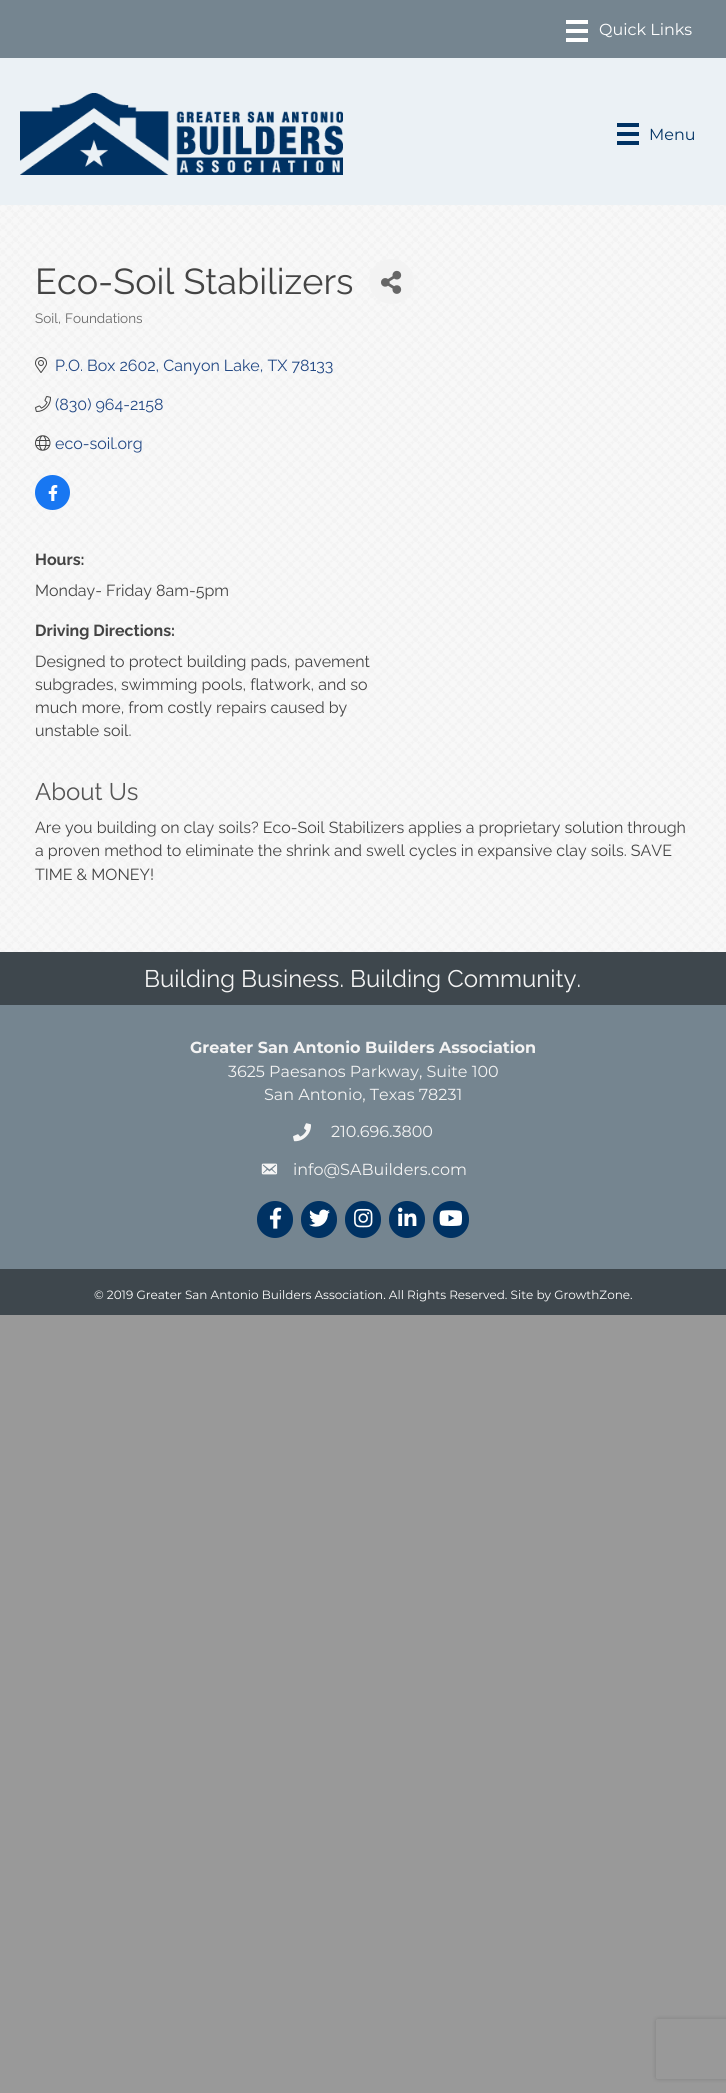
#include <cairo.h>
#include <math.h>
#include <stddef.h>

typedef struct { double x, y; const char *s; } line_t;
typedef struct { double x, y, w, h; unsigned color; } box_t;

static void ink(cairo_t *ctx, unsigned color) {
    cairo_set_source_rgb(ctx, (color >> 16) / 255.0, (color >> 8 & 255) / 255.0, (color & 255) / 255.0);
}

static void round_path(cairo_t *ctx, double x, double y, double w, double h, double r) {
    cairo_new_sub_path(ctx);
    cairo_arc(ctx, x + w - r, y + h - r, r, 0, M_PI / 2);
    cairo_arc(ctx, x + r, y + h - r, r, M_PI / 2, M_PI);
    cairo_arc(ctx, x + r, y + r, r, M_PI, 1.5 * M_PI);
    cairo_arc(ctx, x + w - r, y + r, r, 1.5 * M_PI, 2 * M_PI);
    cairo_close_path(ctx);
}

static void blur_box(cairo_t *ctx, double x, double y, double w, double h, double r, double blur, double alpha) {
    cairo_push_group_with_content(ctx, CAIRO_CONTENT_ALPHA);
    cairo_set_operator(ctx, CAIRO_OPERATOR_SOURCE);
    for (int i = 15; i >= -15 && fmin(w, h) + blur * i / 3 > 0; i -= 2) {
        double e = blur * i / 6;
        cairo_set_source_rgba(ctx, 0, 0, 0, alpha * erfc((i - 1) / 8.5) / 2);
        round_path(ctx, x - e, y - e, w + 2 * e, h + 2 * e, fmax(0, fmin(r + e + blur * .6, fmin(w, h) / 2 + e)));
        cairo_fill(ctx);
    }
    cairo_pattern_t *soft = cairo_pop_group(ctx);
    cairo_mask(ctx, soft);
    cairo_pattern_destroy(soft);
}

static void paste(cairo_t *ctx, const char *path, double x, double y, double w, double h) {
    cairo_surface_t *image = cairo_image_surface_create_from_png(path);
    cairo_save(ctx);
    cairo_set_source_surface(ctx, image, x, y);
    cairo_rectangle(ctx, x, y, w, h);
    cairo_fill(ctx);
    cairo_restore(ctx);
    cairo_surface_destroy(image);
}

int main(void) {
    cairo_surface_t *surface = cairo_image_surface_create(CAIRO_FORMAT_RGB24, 726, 2093);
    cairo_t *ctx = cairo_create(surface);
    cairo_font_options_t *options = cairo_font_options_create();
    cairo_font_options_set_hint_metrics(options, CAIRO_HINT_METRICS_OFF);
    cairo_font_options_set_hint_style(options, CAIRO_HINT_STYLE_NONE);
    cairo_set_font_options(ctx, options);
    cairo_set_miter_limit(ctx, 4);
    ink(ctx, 0x999999);
    cairo_paint(ctx);
    {
        static const box_t items[] = {
            {0, 0, 726, 58, 0x758590},
            {566, 20, 22, 4, 0xFFFFFF},
            {566, 29, 22, 4, 0xFFFFFF},
            {566, 38, 22, 4, 0xFFFFFF},
        };
        for (size_t i = 0; i < sizeof items / sizeof *items; i++) {
            ink(ctx, items[i].color);
            cairo_rectangle(ctx, items[i].x, items[i].y, items[i].w, items[i].h);
            cairo_fill(ctx);
        }
    }
    cairo_select_font_face(ctx, "Montserrat", CAIRO_FONT_SLANT_NORMAL, CAIRO_FONT_WEIGHT_NORMAL);
    cairo_set_font_size(ctx, 16);
    cairo_move_to(ctx, 599, 35);
    cairo_show_text(ctx, "Quick Links");
    ink(ctx, 0xEBF1F5);
    cairo_rectangle(ctx, 0, 58, 726, 147);
    cairo_fill(ctx);
    paste(ctx, "media/1.png", 20, 93, 323, 82);
    {
        static const box_t items[] = {
            {617, 123, 22, 4, 0x003263},
            {617, 132, 22, 4, 0x003263},
            {617, 141, 22, 4, 0x003263},
        };
        for (size_t i = 0; i < sizeof items / sizeof *items; i++) {
            ink(ctx, items[i].color);
            cairo_rectangle(ctx, items[i].x, items[i].y, items[i].w, items[i].h);
            cairo_fill(ctx);
        }
    }
    cairo_move_to(ctx, 649, 140);
    cairo_show_text(ctx, "Menu");
    ink(ctx, 0xF3F3F3);
    cairo_rectangle(ctx, 0, 205, 726, 747);
    cairo_fill(ctx);
    paste(ctx, "media/2.png", 0, 205, 726, 747);
    cairo_select_font_face(ctx, "Raleway", CAIRO_FONT_SLANT_NORMAL, CAIRO_FONT_WEIGHT_NORMAL);
    cairo_set_font_size(ctx, 36);
    ink(ctx, 0x444444);
    cairo_move_to(ctx, 35, 294);
    cairo_show_text(ctx, "Eco-Soil Stabilizers");
    ink(ctx, 0xF3F3F3);
    cairo_new_path(ctx);
    cairo_arc(ctx, 391.5, 281.5, 22.5, 0, 2 * M_PI);
    cairo_fill(ctx);
    paste(ctx, "media/3.png", 381, 270, 21, 24);
    cairo_set_font_size(ctx, 13.5);
    ink(ctx, 0x686868);
    {
        static const line_t items[] = {
            {35, 323, "Soil"},
            {58, 323, ","},
            {65, 323, "Foundations"},
        };
        for (size_t i = 0; i < sizeof items / sizeof *items; i++) {
            cairo_move_to(ctx, items[i].x, items[i].y);
            cairo_show_text(ctx, items[i].s);
        }
    }
    paste(ctx, "media/4.png", 35, 357, 12, 16);
    cairo_set_font_size(ctx, 16);
    ink(ctx, 0x224884);
    cairo_move_to(ctx, 55, 371);
    cairo_show_text(ctx, "P.O. Box 2602, Canyon Lake, TX 78133");
    paste(ctx, "media/5.png", 35, 396, 16, 16);
    cairo_move_to(ctx, 55, 410);
    cairo_show_text(ctx, "(830) 964-2158");
    paste(ctx, "media/6.png", 35, 435, 16, 16);
    cairo_move_to(ctx, 55, 449);
    cairo_show_text(ctx, "eco-soil.org");
    ink(ctx, 0x1877F2);
    cairo_new_path(ctx);
    cairo_arc(ctx, 52.5, 492.5, 17.5, 0, 2 * M_PI);
    cairo_fill(ctx);
    paste(ctx, "media/7.png", 48, 485, 10, 16);
    cairo_select_font_face(ctx, "Raleway", CAIRO_FONT_SLANT_NORMAL, CAIRO_FONT_WEIGHT_BOLD);
    ink(ctx, 0x444444);
    cairo_move_to(ctx, 35, 565);
    cairo_show_text(ctx, "Hours:");
    cairo_select_font_face(ctx, "Raleway", CAIRO_FONT_SLANT_NORMAL, CAIRO_FONT_WEIGHT_NORMAL);
    cairo_move_to(ctx, 35, 596);
    cairo_show_text(ctx, "Monday- Friday 8am-5pm");
    cairo_select_font_face(ctx, "Raleway", CAIRO_FONT_SLANT_NORMAL, CAIRO_FONT_WEIGHT_BOLD);
    cairo_move_to(ctx, 35, 636);
    cairo_show_text(ctx, "Driving Directions:");
    cairo_select_font_face(ctx, "Raleway", CAIRO_FONT_SLANT_NORMAL, CAIRO_FONT_WEIGHT_NORMAL);
    {
        static const line_t items[] = {
            {35, 667, "Designed to protect building pads, pavement"},
            {35, 690, "subgrades, swimming pools, flatwork, and so"},
            {35, 713, "much more, from costly repairs caused by"},
            {35, 736, "unstable soil."},
        };
        for (size_t i = 0; i < sizeof items / sizeof *items; i++) {
            cairo_move_to(ctx, items[i].x, items[i].y);
            cairo_show_text(ctx, items[i].s);
        }
    }
    cairo_set_font_size(ctx, 24);
    ink(ctx, 0x555555);
    cairo_move_to(ctx, 35, 800);
    cairo_show_text(ctx, "About Us");
    cairo_set_font_size(ctx, 16);
    ink(ctx, 0x444444);
    {
        static const line_t items[] = {
            {35, 833, "Are you building on clay soils? Eco-Soil Stabilizers applies a proprietary solution through"},
            {35, 856, "a proven method to eliminate the shrink and swell cycles in expansive clay soils. SAVE"},
            {35, 880, "TIME & MONEY!"},
        };
        for (size_t i = 0; i < sizeof items / sizeof *items; i++) {
            cairo_move_to(ctx, items[i].x, items[i].y);
            cairo_show_text(ctx, items[i].s);
        }
    }
    ink(ctx, 0x3E474D);
    cairo_rectangle(ctx, 0, 952, 726, 53);
    cairo_fill(ctx);
    cairo_set_font_size(ctx, 24);
    ink(ctx, 0xF3F3F3);
    cairo_move_to(ctx, 144, 987);
    cairo_show_text(ctx, "Building Business. Building Community.");
    ink(ctx, 0x758590);
    cairo_rectangle(ctx, 0, 1005, 726, 264);
    cairo_fill(ctx);
    cairo_select_font_face(ctx, "Montserrat", CAIRO_FONT_SLANT_NORMAL, CAIRO_FONT_WEIGHT_BOLD);
    cairo_set_font_size(ctx, 16);
    ink(ctx, 0xF3F3F3);
    cairo_move_to(ctx, 190, 1053);
    cairo_show_text(ctx, "Greater San Antonio Builders Association");
    cairo_select_font_face(ctx, "Montserrat", CAIRO_FONT_SLANT_NORMAL, CAIRO_FONT_WEIGHT_NORMAL);
    cairo_move_to(ctx, 228, 1077);
    cairo_show_text(ctx, "3625 Paesanos Parkway, Suite 100");
    cairo_move_to(ctx, 264, 1100);
    cairo_show_text(ctx, "San Antonio, Texas 78231");
    paste(ctx, "media/8.png", 293, 1123, 18, 19);
    cairo_move_to(ctx, 331, 1137);
    cairo_show_text(ctx, "210.696.3800");
    paste(ctx, "media/9.png", 261, 1163, 17, 12);
    cairo_move_to(ctx, 293, 1175);
    cairo_show_text(ctx, "info@SABuilders.com");
    ink(ctx, 0x003263);
    round_path(ctx, 257, 1201, 36, 37, 18);
    cairo_fill(ctx);
    paste(ctx, "media/10.png", 269, 1207, 13, 22);
    round_path(ctx, 301, 1201, 36, 37, 18);
    cairo_fill(ctx);
    paste(ctx, "media/11.png", 309, 1209, 21, 18);
    round_path(ctx, 345, 1201, 36, 37, 18);
    cairo_fill(ctx);
    paste(ctx, "media/12.png", 354, 1208, 19, 20);
    round_path(ctx, 389, 1201, 36, 37, 18);
    cairo_fill(ctx);
    paste(ctx, "media/13.png", 398, 1207, 19, 19);
    round_path(ctx, 433, 1201, 36, 37, 18);
    cairo_fill(ctx);
    paste(ctx, "media/14.png", 439, 1210, 23, 16);
    ink(ctx, 0x3E474D);
    cairo_rectangle(ctx, 0, 1269, 726, 46);
    cairo_fill(ctx);
    cairo_set_font_size(ctx, 12);
    ink(ctx, 0xFFFFFF);
    cairo_move_to(ctx, 94, 1299);
    cairo_show_text(ctx, "© 2019 Greater San Antonio Builders Association. All Rights Reserved. Site by GrowthZone.");
    cairo_save(ctx);
    cairo_set_fill_rule(ctx, CAIRO_FILL_RULE_EVEN_ODD);
    cairo_new_path(ctx);
    cairo_move_to(ctx, 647, 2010);
    cairo_line_to(ctx, 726, 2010);
    cairo_line_to(ctx, 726, 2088);
    cairo_line_to(ctx, 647, 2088);
    cairo_close_path(ctx);
    cairo_move_to(ctx, 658, 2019);
    cairo_line_to(ctx, 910, 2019);
    cairo_curve_to(ctx, 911, 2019, 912, 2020, 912, 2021);
    cairo_line_to(ctx, 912, 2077);
    cairo_curve_to(ctx, 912, 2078, 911, 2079, 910, 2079);
    cairo_line_to(ctx, 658, 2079);
    cairo_curve_to(ctx, 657, 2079, 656, 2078, 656, 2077);
    cairo_line_to(ctx, 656, 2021);
    cairo_curve_to(ctx, 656, 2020, 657, 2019, 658, 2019);
    cairo_close_path(ctx);
    cairo_clip(ctx);
    ink(ctx, 0x808080);
    blur_box(ctx, 656, 2019, 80, 60, 2, 2.5, 1);
    cairo_restore(ctx);
    cairo_surface_write_to_png(surface, "image.png");
    cairo_font_options_destroy(options);
    cairo_destroy(ctx);
    cairo_surface_destroy(surface);
    return 0;
}
